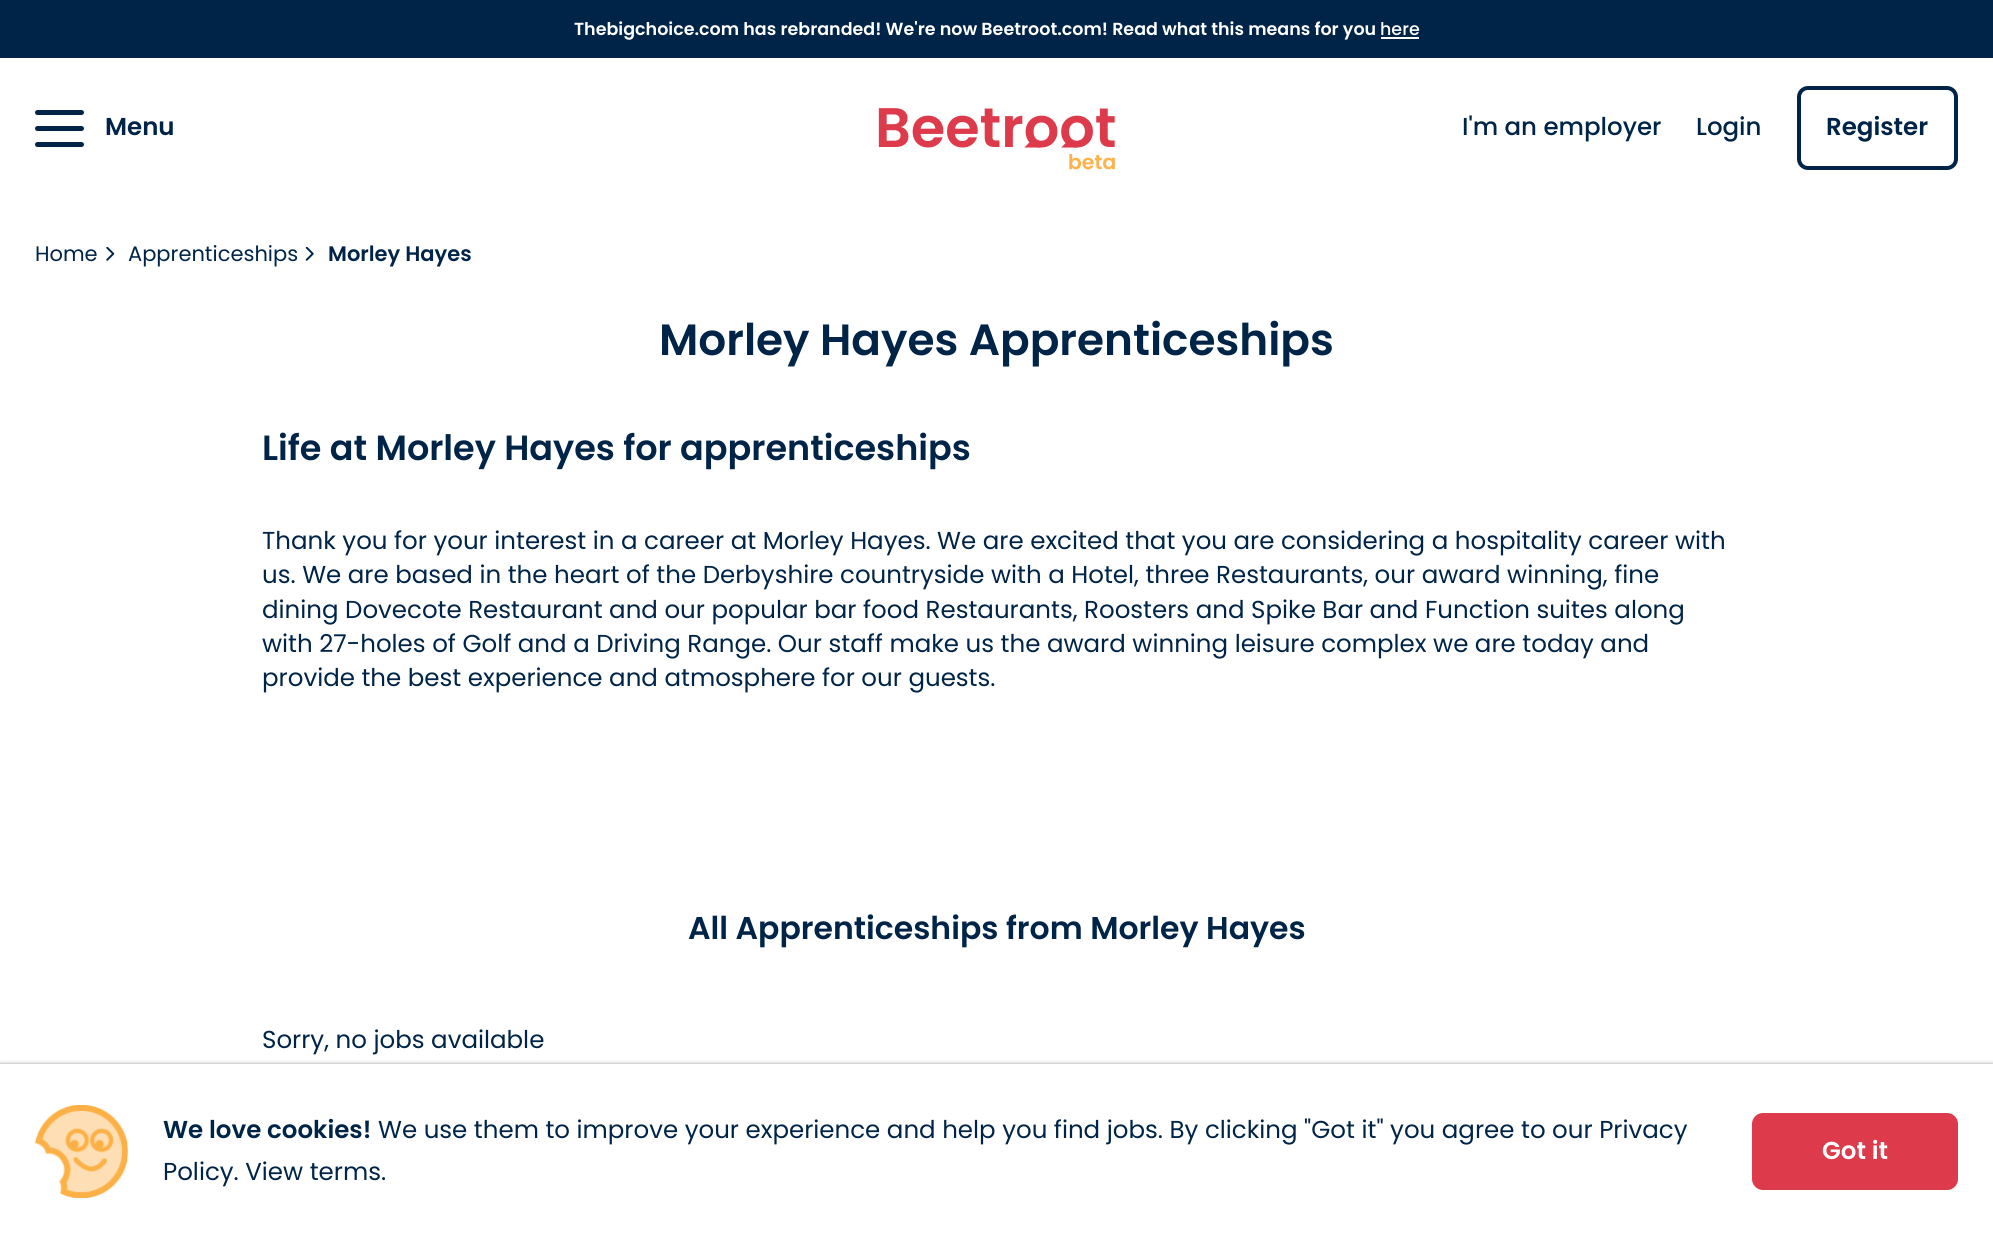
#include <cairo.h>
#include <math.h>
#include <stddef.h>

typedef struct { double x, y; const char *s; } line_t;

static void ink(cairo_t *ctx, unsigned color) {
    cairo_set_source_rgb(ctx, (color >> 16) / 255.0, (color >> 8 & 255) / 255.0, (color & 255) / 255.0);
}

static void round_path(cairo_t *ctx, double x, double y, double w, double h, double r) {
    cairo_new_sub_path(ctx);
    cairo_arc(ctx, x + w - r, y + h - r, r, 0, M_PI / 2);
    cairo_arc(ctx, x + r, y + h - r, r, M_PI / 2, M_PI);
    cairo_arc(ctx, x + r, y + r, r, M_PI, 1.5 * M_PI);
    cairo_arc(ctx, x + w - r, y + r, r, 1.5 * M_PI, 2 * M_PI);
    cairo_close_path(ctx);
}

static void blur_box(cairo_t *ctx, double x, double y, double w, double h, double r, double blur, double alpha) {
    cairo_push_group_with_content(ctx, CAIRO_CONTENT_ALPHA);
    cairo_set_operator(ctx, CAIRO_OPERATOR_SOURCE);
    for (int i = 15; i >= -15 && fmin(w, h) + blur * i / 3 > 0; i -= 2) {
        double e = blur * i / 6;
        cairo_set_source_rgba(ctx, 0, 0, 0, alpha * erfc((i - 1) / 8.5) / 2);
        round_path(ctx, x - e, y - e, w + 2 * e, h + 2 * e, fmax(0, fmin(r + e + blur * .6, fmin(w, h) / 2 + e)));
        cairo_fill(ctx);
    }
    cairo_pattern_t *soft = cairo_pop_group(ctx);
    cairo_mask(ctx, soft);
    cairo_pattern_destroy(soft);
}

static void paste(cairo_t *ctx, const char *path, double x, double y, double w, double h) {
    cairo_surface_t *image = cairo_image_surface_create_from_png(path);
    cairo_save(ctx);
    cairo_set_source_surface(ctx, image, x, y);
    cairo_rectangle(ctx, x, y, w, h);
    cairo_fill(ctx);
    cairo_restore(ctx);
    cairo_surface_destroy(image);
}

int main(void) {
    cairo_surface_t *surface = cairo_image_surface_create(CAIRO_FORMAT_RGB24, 1993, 1239);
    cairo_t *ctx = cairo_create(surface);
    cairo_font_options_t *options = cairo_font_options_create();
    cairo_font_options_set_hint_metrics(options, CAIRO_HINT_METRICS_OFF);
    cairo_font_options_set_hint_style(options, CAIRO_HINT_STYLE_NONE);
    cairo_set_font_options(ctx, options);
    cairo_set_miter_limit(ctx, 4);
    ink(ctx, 0x002447);
    cairo_paint(ctx);
    cairo_select_font_face(ctx, "Poppins SemiBold", CAIRO_FONT_SLANT_NORMAL, CAIRO_FONT_WEIGHT_NORMAL);
    cairo_set_font_size(ctx, 17.5);
    ink(ctx, 0xFFFFFF);
    cairo_move_to(ctx, 574, 35);
    cairo_show_text(ctx, "Thebigchoice.com has rebranded! We're now Beetroot.com! Read what this means for you");
    cairo_select_font_face(ctx, "Poppins Medium", CAIRO_FONT_SLANT_NORMAL, CAIRO_FONT_WEIGHT_NORMAL);
    cairo_move_to(ctx, 1380, 35);
    cairo_show_text(ctx, "here");
    cairo_rectangle(ctx, 1381, 37, 38, 2);
    cairo_fill(ctx);
    cairo_rectangle(ctx, 0, 58, 1993, 1006);
    cairo_fill(ctx);
    ink(ctx, 0x002447);
    round_path(ctx, 35, 110, 49, 5, 2.5);
    cairo_fill(ctx);
    round_path(ctx, 35, 126, 49, 5, 2.5);
    cairo_fill(ctx);
    round_path(ctx, 35, 142, 49, 5, 2.5);
    cairo_fill(ctx);
    cairo_select_font_face(ctx, "Poppins SemiBold", CAIRO_FONT_SLANT_NORMAL, CAIRO_FONT_WEIGHT_NORMAL);
    cairo_set_font_size(ctx, 24.5);
    cairo_move_to(ctx, 105, 135);
    cairo_show_text(ctx, "Menu");
    paste(ctx, "media/1.png", 878, 108, 237, 62);
    cairo_select_font_face(ctx, "Poppins Medium", CAIRO_FONT_SLANT_NORMAL, CAIRO_FONT_WEIGHT_NORMAL);
    cairo_move_to(ctx, 1462, 135);
    cairo_show_text(ctx, "I'm an employer");
    cairo_move_to(ctx, 1696, 135);
    cairo_show_text(ctx, "Login");
    round_path(ctx, 1799, 88, 157, 80, 9);
    cairo_set_line_width(ctx, 4);
    cairo_stroke(ctx);
    cairo_select_font_face(ctx, "Poppins SemiBold", CAIRO_FONT_SLANT_NORMAL, CAIRO_FONT_WEIGHT_NORMAL);
    cairo_move_to(ctx, 1826, 135);
    cairo_show_text(ctx, "Register");
    cairo_select_font_face(ctx, "Poppins", CAIRO_FONT_SLANT_NORMAL, CAIRO_FONT_WEIGHT_NORMAL);
    cairo_set_font_size(ctx, 21);
    cairo_move_to(ctx, 35, 261);
    cairo_show_text(ctx, "Home");
    paste(ctx, "media/2.png", 106, 247, 9, 14);
    cairo_move_to(ctx, 128, 261);
    cairo_show_text(ctx, "Apprenticeships");
    paste(ctx, "media/3.png", 305, 247, 9, 14);
    cairo_select_font_face(ctx, "Poppins SemiBold", CAIRO_FONT_SLANT_NORMAL, CAIRO_FONT_WEIGHT_NORMAL);
    cairo_move_to(ctx, 328, 261);
    cairo_show_text(ctx, "Morley Hayes");
    cairo_set_font_size(ctx, 43.75);
    cairo_move_to(ctx, 659, 355);
    cairo_show_text(ctx, "Morley Hayes Apprenticeships");
    cairo_set_font_size(ctx, 35);
    cairo_move_to(ctx, 262, 460);
    cairo_show_text(ctx, "Life at Morley Hayes for apprenticeships");
    cairo_select_font_face(ctx, "Poppins", CAIRO_FONT_SLANT_NORMAL, CAIRO_FONT_WEIGHT_NORMAL);
    cairo_set_font_size(ctx, 24.5);
    {
        static const line_t items[] = {
            {262, 549, "Thank you for your interest in a career at Morley Hayes. We are excited that you are considering a hospitality career with"},
            {262, 583, "us. We are based in the heart of the Derbyshire countryside with a Hotel, three Restaurants, our award winning, fine"},
            {262, 618, "dining Dovecote Restaurant and our popular bar food Restaurants, Roosters and Spike Bar and Function suites along"},
            {262, 652, "with 27-holes of Golf and a Driving Range. Our staff make us the award winning leisure complex we are today and"},
            {262, 686, "provide the best experience and atmosphere for our guests."},
        };
        for (size_t i = 0; i < sizeof items / sizeof *items; i++) {
            cairo_move_to(ctx, items[i].x, items[i].y);
            cairo_show_text(ctx, items[i].s);
        }
    }
    cairo_select_font_face(ctx, "Poppins SemiBold", CAIRO_FONT_SLANT_NORMAL, CAIRO_FONT_WEIGHT_NORMAL);
    cairo_set_font_size(ctx, 31.5);
    cairo_move_to(ctx, 688, 939);
    cairo_show_text(ctx, "All Apprenticeships from Morley Hayes");
    cairo_select_font_face(ctx, "Poppins", CAIRO_FONT_SLANT_NORMAL, CAIRO_FONT_WEIGHT_NORMAL);
    cairo_set_font_size(ctx, 24.5);
    cairo_move_to(ctx, 262, 1048);
    cairo_show_text(ctx, "Sorry, no jobs available");
    ink(ctx, 0x979797);
    blur_box(ctx, 0, 1064, 1993, 175, 0, 2, 1);
    ink(ctx, 0xFFFFFF);
    cairo_rectangle(ctx, 0, 1064, 1993, 175);
    cairo_fill(ctx);
    paste(ctx, "media/4.png", 35, 1105, 93, 93);
    cairo_select_font_face(ctx, "Poppins SemiBold", CAIRO_FONT_SLANT_NORMAL, CAIRO_FONT_WEIGHT_NORMAL);
    ink(ctx, 0x002447);
    cairo_move_to(ctx, 163, 1138);
    cairo_show_text(ctx, "We love cookies!");
    cairo_select_font_face(ctx, "Poppins", CAIRO_FONT_SLANT_NORMAL, CAIRO_FONT_WEIGHT_NORMAL);
    cairo_move_to(ctx, 378, 1138);
    cairo_show_text(ctx, "We use them to improve your experience and help you find jobs. By clicking \"Got it\" you agree to our Privacy");
    cairo_move_to(ctx, 163, 1180);
    cairo_show_text(ctx, "Policy. View terms.");
    ink(ctx, 0xDD3B4C);
    round_path(ctx, 1752, 1113, 206, 77, 11);
    cairo_fill(ctx);
    cairo_select_font_face(ctx, "Poppins SemiBold", CAIRO_FONT_SLANT_NORMAL, CAIRO_FONT_WEIGHT_NORMAL);
    ink(ctx, 0xFFFFFF);
    cairo_move_to(ctx, 1822, 1159);
    cairo_show_text(ctx, "Got it");
    cairo_surface_write_to_png(surface, "image.png");
    cairo_font_options_destroy(options);
    cairo_destroy(ctx);
    cairo_surface_destroy(surface);
    return 0;
}
